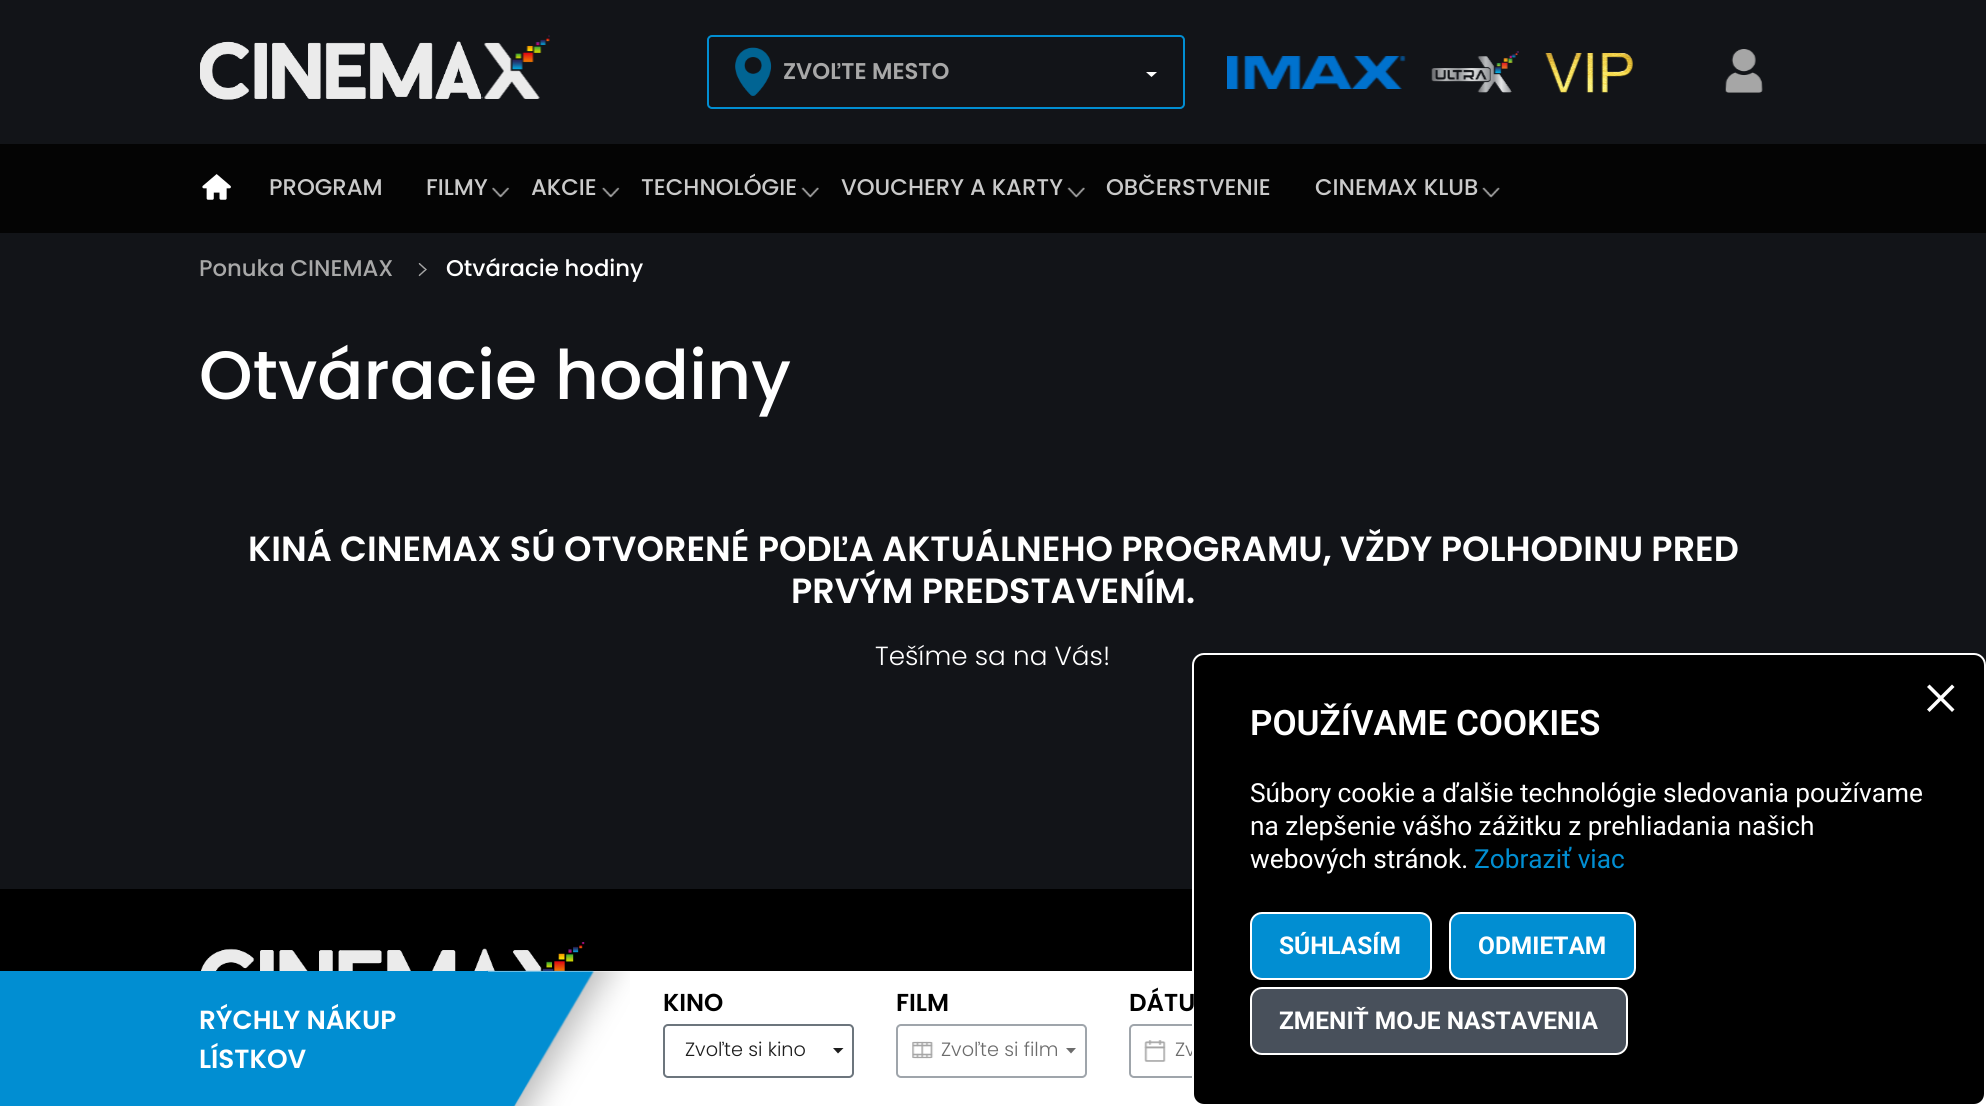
#include <cairo.h>
#include <math.h>
#include <stddef.h>

typedef struct { double x, y; const char *s; } line_t;

static void ink(cairo_t *ctx, unsigned color) {
    cairo_set_source_rgb(ctx, (color >> 16) / 255.0, (color >> 8 & 255) / 255.0, (color & 255) / 255.0);
}

static void round_path(cairo_t *ctx, double x, double y, double w, double h, double r) {
    cairo_new_sub_path(ctx);
    cairo_arc(ctx, x + w - r, y + h - r, r, 0, M_PI / 2);
    cairo_arc(ctx, x + r, y + h - r, r, M_PI / 2, M_PI);
    cairo_arc(ctx, x + r, y + r, r, M_PI, 1.5 * M_PI);
    cairo_arc(ctx, x + w - r, y + r, r, 1.5 * M_PI, 2 * M_PI);
    cairo_close_path(ctx);
}

static void paste(cairo_t *ctx, const char *path, double x, double y, double w, double h) {
    cairo_surface_t *image = cairo_image_surface_create_from_png(path);
    cairo_save(ctx);
    cairo_set_source_surface(ctx, image, x, y);
    cairo_rectangle(ctx, x, y, w, h);
    cairo_fill(ctx);
    cairo_restore(ctx);
    cairo_surface_destroy(image);
}

int main(void) {
    cairo_surface_t *surface = cairo_image_surface_create(CAIRO_FORMAT_RGB24, 1986, 1106);
    cairo_t *ctx = cairo_create(surface);
    cairo_font_options_t *options = cairo_font_options_create();
    cairo_font_options_set_hint_metrics(options, CAIRO_HINT_METRICS_OFF);
    cairo_font_options_set_hint_style(options, CAIRO_HINT_STYLE_NONE);
    cairo_set_font_options(ctx, options);
    cairo_set_miter_limit(ctx, 4);
    ink(ctx, 0x121418);
    cairo_paint(ctx);
    paste(ctx, "media/1.png", 200, 41, 281, 59);
    paste(ctx, "media/2.png", 481, 35, 69, 64);
    paste(ctx, "media/3.png", 735, 47, 37, 49);
    round_path(ctx, 708, 36, 476, 72, 4);
    ink(ctx, 0x018ED2);
    cairo_stroke(ctx);
    cairo_select_font_face(ctx, "Poppins SemiBold", CAIRO_FONT_SLANT_NORMAL, CAIRO_FONT_WEIGHT_NORMAL);
    cairo_set_font_size(ctx, 22.75);
    ink(ctx, 0xA8A8A8);
    cairo_move_to(ctx, 783, 79);
    cairo_show_text(ctx, "ZVOĽTE MESTO");
    ink(ctx, 0xFFFFFF);
    cairo_new_path(ctx);
    cairo_move_to(ctx, 1146, 72);
    cairo_line_to(ctx, 1157, 72);
    cairo_line_to(ctx, 1151.5, 77);
    cairo_close_path(ctx);
    cairo_fill(ctx);
    paste(ctx, "media/4.png", 1227, 56, 179, 33);
    paste(ctx, "media/5.png", 1431, 51, 88, 42);
    paste(ctx, "media/6.png", 1545, 53, 88, 40);
    paste(ctx, "media/7.png", 1725, 49, 38, 44);
    ink(ctx, 0x040404);
    cairo_rectangle(ctx, 0, 144, 1986, 89);
    cairo_fill(ctx);
    paste(ctx, "media/8.png", 202, 174, 29, 26);
    cairo_select_font_face(ctx, "Poppins Medium", CAIRO_FONT_SLANT_NORMAL, CAIRO_FONT_WEIGHT_NORMAL);
    ink(ctx, 0xCACACA);
    cairo_move_to(ctx, 269, 195);
    cairo_show_text(ctx, "PROGRAM");
    cairo_move_to(ctx, 426, 195);
    cairo_show_text(ctx, "FILMY");
    paste(ctx, "media/9.png", 492, 187, 18, 11);
    cairo_move_to(ctx, 531, 195);
    cairo_show_text(ctx, "AKCIE");
    paste(ctx, "media/10.png", 601, 187, 19, 11);
    cairo_move_to(ctx, 641, 195);
    cairo_show_text(ctx, "TECHNOLÓGIE");
    paste(ctx, "media/11.png", 801, 187, 18, 11);
    cairo_move_to(ctx, 841, 195);
    cairo_show_text(ctx, "VOUCHERY A KARTY");
    paste(ctx, "media/12.png", 1067, 187, 18, 11);
    cairo_move_to(ctx, 1106, 195);
    cairo_show_text(ctx, "OBČERSTVENIE");
    cairo_move_to(ctx, 1315, 195);
    cairo_show_text(ctx, "CINEMAX KLUB");
    paste(ctx, "media/13.png", 1482, 187, 18, 11);
    ink(ctx, 0xA8A8A8);
    cairo_move_to(ctx, 199, 276);
    cairo_show_text(ctx, "Ponuka CINEMAX");
    paste(ctx, "media/14.png", 418, 263, 9, 14);
    ink(ctx, 0xFFFFFF);
    cairo_move_to(ctx, 446, 276);
    cairo_show_text(ctx, "Otváracie hodiny");
    cairo_set_font_size(ctx, 68.25);
    cairo_move_to(ctx, 199, 399);
    cairo_show_text(ctx, "Otváracie hodiny");
    cairo_save(ctx);
    cairo_rectangle(ctx, 200, 529, 1589, 264);
    cairo_clip(ctx);
    cairo_select_font_face(ctx, "Poppins SemiBold", CAIRO_FONT_SLANT_NORMAL, CAIRO_FONT_WEIGHT_NORMAL);
    cairo_set_font_size(ctx, 35);
    cairo_move_to(ctx, 248, 561);
    cairo_show_text(ctx, "KINÁ CINEMAX SÚ OTVORENÉ PODĽA AKTUÁLNEHO PROGRAMU, VŽDY POLHODINU PRED");
    cairo_restore(ctx);
    cairo_select_font_face(ctx, "Poppins SemiBold", CAIRO_FONT_SLANT_NORMAL, CAIRO_FONT_WEIGHT_NORMAL);
    cairo_set_font_size(ctx, 35);
    cairo_move_to(ctx, 791, 603);
    cairo_show_text(ctx, "PRVÝM PREDSTAVENÍM.");
    cairo_select_font_face(ctx, "Poppins Light", CAIRO_FONT_SLANT_NORMAL, CAIRO_FONT_WEIGHT_NORMAL);
    cairo_set_font_size(ctx, 26.25);
    cairo_move_to(ctx, 875, 665);
    cairo_show_text(ctx, "Tešíme sa na Vás!");
    ink(ctx, 0x000000);
    cairo_rectangle(ctx, 0, 889, 1192, 82);
    cairo_fill(ctx);
    paste(ctx, "media/15.png", 201, 942, 384, 29);
    ink(ctx, 0xFFFFFF);
    cairo_rectangle(ctx, 1974, 1094, 12, 12);
    cairo_fill(ctx);
    cairo_rectangle(ctx, 488, 971, 716, 135);
    cairo_fill(ctx);
    paste(ctx, "media/18.png", 1144, 1040, 22, 22);
    round_path(ctx, 1130, 1025, 190, 52, 4);
    ink(ctx, 0x9FA5AB);
    cairo_stroke(ctx);
    cairo_set_font_size(ctx, 19.25);
    ink(ctx, 0x6C6C6C);
    cairo_move_to(ctx, 1175, 1056);
    cairo_show_text(ctx, "Zv");
    ink(ctx, 0x000000);
    round_path(ctx, 1193, 654, 792, 451, 11);
    cairo_fill_preserve(ctx);
    ink(ctx, 0xFFFFFF);
    cairo_stroke(ctx);
    cairo_new_path(ctx);
    cairo_move_to(ctx, 1952, 684.5);
    cairo_line_to(ctx, 1954.5, 687);
    cairo_line_to(ctx, 1929.5, 712);
    cairo_line_to(ctx, 1927, 709.5);
    cairo_close_path(ctx);
    cairo_fill(ctx);
    cairo_new_path(ctx);
    cairo_move_to(ctx, 1927, 687);
    cairo_line_to(ctx, 1929.5, 684.5);
    cairo_line_to(ctx, 1954.5, 709.5);
    cairo_line_to(ctx, 1952, 712);
    cairo_close_path(ctx);
    cairo_fill(ctx);
    cairo_select_font_face(ctx, "Roboto SemiBold", CAIRO_FONT_SLANT_NORMAL, CAIRO_FONT_WEIGHT_NORMAL);
    cairo_set_font_size(ctx, 35);
    cairo_move_to(ctx, 1250, 735);
    cairo_show_text(ctx, "POUŽÍVAME COOKIES");
    cairo_select_font_face(ctx, "Roboto", CAIRO_FONT_SLANT_NORMAL, CAIRO_FONT_WEIGHT_NORMAL);
    cairo_set_font_size(ctx, 26.25);
    {
        static const line_t items[] = {
            {1250, 802, "Súbory cookie a ďalšie technológie sledovania používame"},
            {1250, 835, "na zlepšenie vášho zážitku z prehliadania našich"},
            {1250, 868, "webových stránok."},
        };
        for (size_t i = 0; i < sizeof items / sizeof *items; i++) {
            cairo_move_to(ctx, items[i].x, items[i].y);
            cairo_show_text(ctx, items[i].s);
        }
    }
    ink(ctx, 0x018ED2);
    cairo_move_to(ctx, 1474, 868);
    cairo_show_text(ctx, "Zobraziť viac");
    round_path(ctx, 1251, 913, 180, 66, 11);
    cairo_fill_preserve(ctx);
    ink(ctx, 0xFFFFFF);
    cairo_stroke(ctx);
    cairo_select_font_face(ctx, "Roboto", CAIRO_FONT_SLANT_NORMAL, CAIRO_FONT_WEIGHT_BOLD);
    cairo_set_font_size(ctx, 24.5);
    cairo_move_to(ctx, 1279, 954);
    cairo_show_text(ctx, "SÚHLASÍM");
    ink(ctx, 0x018ED2);
    round_path(ctx, 1450, 913, 185, 66, 11);
    cairo_fill_preserve(ctx);
    ink(ctx, 0xFFFFFF);
    cairo_stroke(ctx);
    cairo_move_to(ctx, 1478, 954);
    cairo_show_text(ctx, "ODMIETAM");
    ink(ctx, 0x48505B);
    round_path(ctx, 1251, 988, 376, 66, 11);
    cairo_fill_preserve(ctx);
    ink(ctx, 0xFFFFFF);
    cairo_stroke(ctx);
    cairo_move_to(ctx, 1279, 1029);
    cairo_show_text(ctx, "ZMENIŤ MOJE NASTAVENIA");
    ink(ctx, 0x018ED2);
    cairo_rectangle(ctx, 0, 971, 488, 135);
    cairo_fill(ctx);
    cairo_select_font_face(ctx, "Poppins SemiBold", CAIRO_FONT_SLANT_NORMAL, CAIRO_FONT_WEIGHT_NORMAL);
    cairo_set_font_size(ctx, 26.25);
    ink(ctx, 0xFFFFFF);
    cairo_move_to(ctx, 199, 1029);
    cairo_show_text(ctx, "RÝCHLY NÁKUP");
    cairo_move_to(ctx, 199, 1068);
    cairo_show_text(ctx, "LÍSTKOV");
    paste(ctx, "media/16.png", 486, 970, 144, 136);
    cairo_set_font_size(ctx, 24.5);
    ink(ctx, 0x000000);
    cairo_move_to(ctx, 663, 1011);
    cairo_show_text(ctx, "KINO");
    round_path(ctx, 664, 1025, 189, 52, 4);
    ink(ctx, 0x6C757D);
    cairo_stroke(ctx);
    cairo_select_font_face(ctx, "Poppins Light", CAIRO_FONT_SLANT_NORMAL, CAIRO_FONT_WEIGHT_NORMAL);
    cairo_set_font_size(ctx, 19.25);
    ink(ctx, 0x1D1D1D);
    cairo_move_to(ctx, 685, 1056);
    cairo_show_text(ctx, "Zvoľte si kino");
    cairo_new_path(ctx);
    cairo_move_to(ctx, 833, 1048);
    cairo_line_to(ctx, 843.5, 1048);
    cairo_line_to(ctx, 838, 1053.5);
    cairo_close_path(ctx);
    cairo_fill(ctx);
    cairo_select_font_face(ctx, "Poppins SemiBold", CAIRO_FONT_SLANT_NORMAL, CAIRO_FONT_WEIGHT_NORMAL);
    cairo_set_font_size(ctx, 24.5);
    ink(ctx, 0x000000);
    cairo_move_to(ctx, 896, 1011);
    cairo_show_text(ctx, "FILM");
    paste(ctx, "media/17.png", 912, 1041, 22, 18);
    round_path(ctx, 897, 1025, 189, 52, 4);
    ink(ctx, 0x9FA5AB);
    cairo_stroke(ctx);
    cairo_select_font_face(ctx, "Poppins Light", CAIRO_FONT_SLANT_NORMAL, CAIRO_FONT_WEIGHT_NORMAL);
    cairo_set_font_size(ctx, 19.25);
    ink(ctx, 0x6C6C6C);
    cairo_move_to(ctx, 941, 1056);
    cairo_show_text(ctx, "Zvoľte si film");
    cairo_new_path(ctx);
    cairo_move_to(ctx, 1066, 1048);
    cairo_line_to(ctx, 1076, 1048);
    cairo_line_to(ctx, 1071, 1053.5);
    cairo_close_path(ctx);
    cairo_fill(ctx);
    cairo_select_font_face(ctx, "Poppins SemiBold", CAIRO_FONT_SLANT_NORMAL, CAIRO_FONT_WEIGHT_NORMAL);
    cairo_set_font_size(ctx, 24.5);
    ink(ctx, 0x000000);
    cairo_move_to(ctx, 1129, 1011);
    cairo_show_text(ctx, "DÁTU");
    cairo_surface_write_to_png(surface, "image.png");
    cairo_font_options_destroy(options);
    cairo_destroy(ctx);
    cairo_surface_destroy(surface);
    return 0;
}
